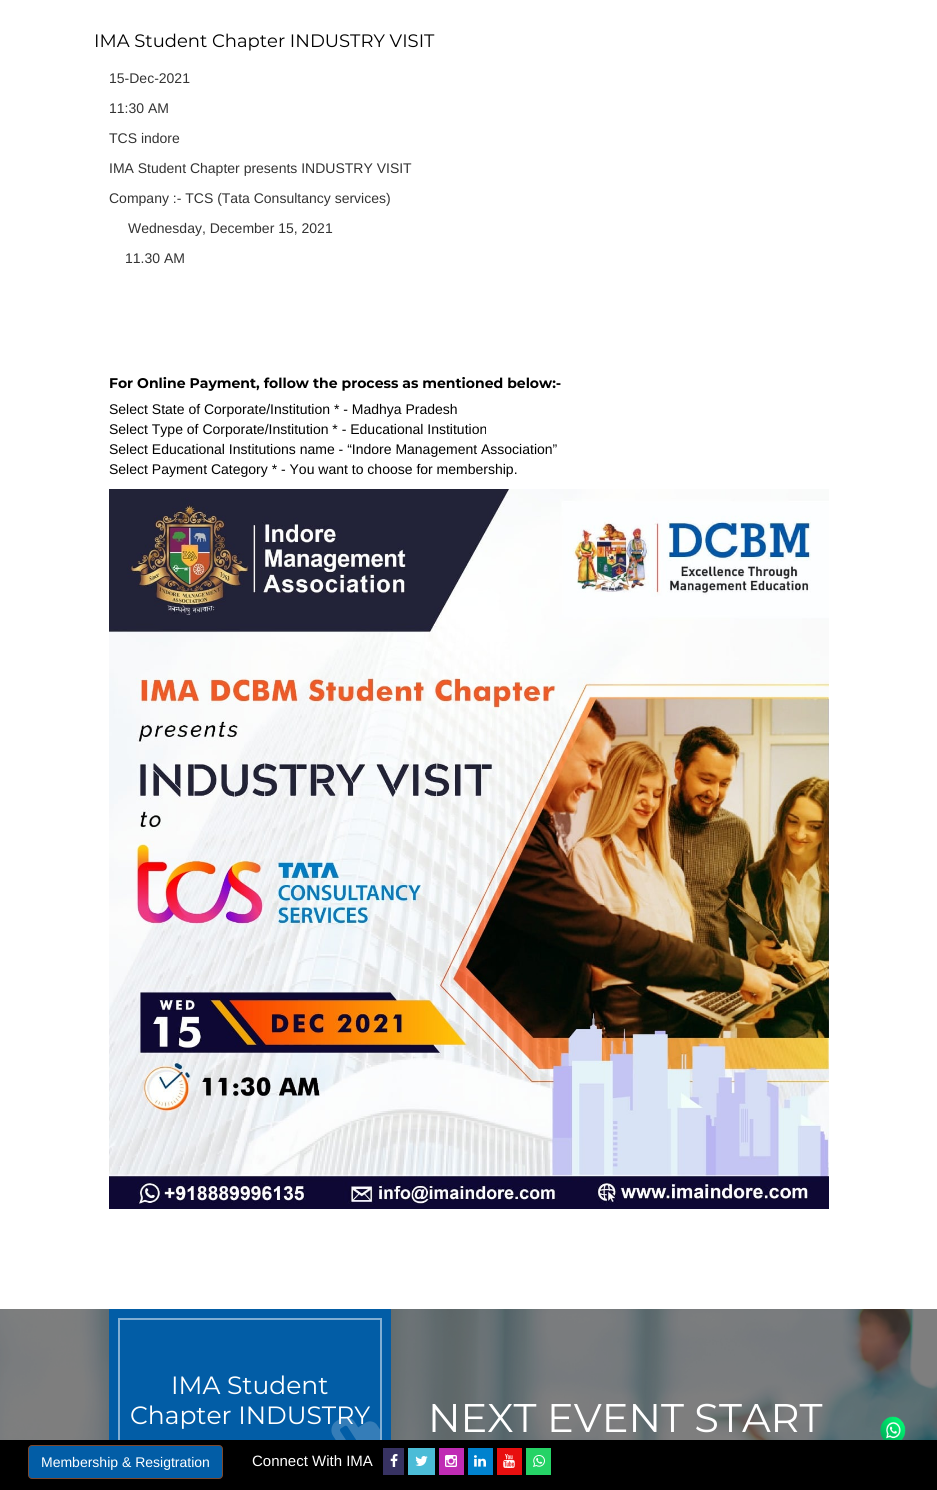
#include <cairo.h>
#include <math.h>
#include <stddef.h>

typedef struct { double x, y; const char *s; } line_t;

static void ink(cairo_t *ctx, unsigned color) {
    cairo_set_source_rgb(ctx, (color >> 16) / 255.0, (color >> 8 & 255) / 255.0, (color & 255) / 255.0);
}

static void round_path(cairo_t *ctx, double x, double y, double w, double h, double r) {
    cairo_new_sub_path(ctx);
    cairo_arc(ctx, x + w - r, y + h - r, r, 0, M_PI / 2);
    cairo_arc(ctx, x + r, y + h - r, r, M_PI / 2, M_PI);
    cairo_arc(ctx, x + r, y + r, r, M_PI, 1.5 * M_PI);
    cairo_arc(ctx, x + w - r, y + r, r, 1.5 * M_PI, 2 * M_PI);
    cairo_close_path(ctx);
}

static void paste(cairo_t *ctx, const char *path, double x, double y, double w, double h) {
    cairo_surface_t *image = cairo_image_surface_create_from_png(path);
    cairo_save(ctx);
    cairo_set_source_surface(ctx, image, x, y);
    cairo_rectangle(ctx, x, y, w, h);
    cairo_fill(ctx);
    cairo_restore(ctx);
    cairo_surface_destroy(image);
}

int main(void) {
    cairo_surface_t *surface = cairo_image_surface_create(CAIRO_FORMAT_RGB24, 937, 1490);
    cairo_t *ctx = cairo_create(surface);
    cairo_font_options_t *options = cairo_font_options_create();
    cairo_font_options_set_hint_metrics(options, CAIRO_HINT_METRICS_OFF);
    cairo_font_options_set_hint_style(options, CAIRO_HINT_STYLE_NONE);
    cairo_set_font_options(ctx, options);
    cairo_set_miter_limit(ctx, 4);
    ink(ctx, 0xFFFFFF);
    cairo_paint(ctx);
    cairo_select_font_face(ctx, "Montserrat", CAIRO_FONT_SLANT_NORMAL, CAIRO_FONT_WEIGHT_NORMAL);
    cairo_set_font_size(ctx, 18);
    ink(ctx, 0x010101);
    cairo_move_to(ctx, 94, 47);
    cairo_show_text(ctx, "IMA Student Chapter INDUSTRY VISIT");
    cairo_select_font_face(ctx, "Liberation Sans", CAIRO_FONT_SLANT_NORMAL, CAIRO_FONT_WEIGHT_NORMAL);
    cairo_set_font_size(ctx, 14);
    ink(ctx, 0x333333);
    {
        static const line_t items[] = {
            {109, 83, "15-Dec-2021"},
            {109, 113, "11:30 AM"},
            {109, 143, "TCS indore"},
            {109, 173, "IMA Student Chapter presents INDUSTRY VISIT"},
            {109, 203, "Company :- TCS (Tata Consultancy services)"},
            {128, 233, "Wednesday, December 15, 2021"},
            {125, 263, "11.30 AM"},
        };
        for (size_t i = 0; i < sizeof items / sizeof *items; i++) {
            cairo_move_to(ctx, items[i].x, items[i].y);
            cairo_show_text(ctx, items[i].s);
        }
    }
    cairo_select_font_face(ctx, "Montserrat", CAIRO_FONT_SLANT_NORMAL, CAIRO_FONT_WEIGHT_BOLD);
    ink(ctx, 0x010101);
    cairo_move_to(ctx, 109, 388);
    cairo_show_text(ctx, "For Online Payment, follow the process as mentioned below:-");
    cairo_select_font_face(ctx, "Liberation Sans", CAIRO_FONT_SLANT_NORMAL, CAIRO_FONT_WEIGHT_NORMAL);
    {
        static const line_t items[] = {
            {109, 414, "Select State of Corporate/Institution * - Madhya Pradesh"},
            {109, 434, "Select Type of Corporate/Institution * - Educational Institution"},
            {109, 454, "Select Educational Institutions name - “Indore Management Association”"},
            {109, 474, "Select Payment Category * - You want to choose for membership."},
        };
        for (size_t i = 0; i < sizeof items / sizeof *items; i++) {
            cairo_move_to(ctx, items[i].x, items[i].y);
            cairo_show_text(ctx, items[i].s);
        }
    }
    paste(ctx, "media/1.png", 109, 489, 720, 720);
    paste(ctx, "media/2.png", 0, 1309, 937, 131);
    ink(ctx, 0x025DA6);
    cairo_rectangle(ctx, 109, 1309, 282, 131);
    cairo_fill(ctx);
    cairo_rectangle(ctx, 119, 1319, 262, 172);
    ink(ctx, 0x81AED3);
    cairo_stroke(ctx);
    cairo_select_font_face(ctx, "Montserrat", CAIRO_FONT_SLANT_NORMAL, CAIRO_FONT_WEIGHT_NORMAL);
    cairo_set_font_size(ctx, 25);
    ink(ctx, 0xFFFFFF);
    cairo_move_to(ctx, 171, 1394);
    cairo_show_text(ctx, "IMA Student");
    cairo_move_to(ctx, 130, 1424);
    cairo_show_text(ctx, "Chapter INDUSTRY");
    paste(ctx, "media/3.png", 331, 1417, 49, 23);
    cairo_set_font_size(ctx, 40);
    cairo_move_to(ctx, 428, 1432);
    cairo_show_text(ctx, "NEXT EVENT START");
    paste(ctx, "media/4.png", 880, 1416, 26, 24);
    ink(ctx, 0x000000);
    cairo_rectangle(ctx, 0, 1440, 937, 50);
    cairo_fill(ctx);
    ink(ctx, 0x025DA6);
    round_path(ctx, 28.5, 1445.5, 194, 33, 3.5);
    cairo_fill_preserve(ctx);
    ink(ctx, 0x7D482D);
    cairo_set_line_width(ctx, 1);
    cairo_stroke(ctx);
    cairo_select_font_face(ctx, "Liberation Sans", CAIRO_FONT_SLANT_NORMAL, CAIRO_FONT_WEIGHT_NORMAL);
    cairo_set_font_size(ctx, 14);
    ink(ctx, 0xFFFFFF);
    cairo_move_to(ctx, 41, 1467);
    cairo_show_text(ctx, "Membership & Resigtration");
    cairo_set_font_size(ctx, 15);
    cairo_move_to(ctx, 252, 1466);
    cairo_show_text(ctx, "Connect With IMA");
    ink(ctx, 0x373262);
    cairo_rectangle(ctx, 383, 1448, 21, 27);
    cairo_fill(ctx);
    paste(ctx, "media/5.png", 390, 1454, 8, 13);
    ink(ctx, 0x4BBCD7);
    cairo_rectangle(ctx, 408, 1448, 27, 27);
    cairo_fill(ctx);
    paste(ctx, "media/6.png", 415, 1456, 13, 10);
    ink(ctx, 0xC02CB4);
    cairo_rectangle(ctx, 439, 1448, 25, 27);
    cairo_fill(ctx);
    paste(ctx, "media/7.png", 445, 1455, 12, 12);
    ink(ctx, 0x0082CE);
    cairo_rectangle(ctx, 468, 1448, 25, 27);
    cairo_fill(ctx);
    paste(ctx, "media/8.png", 474, 1455, 12, 12);
    ink(ctx, 0xE80F0F);
    cairo_rectangle(ctx, 497, 1448, 25, 27);
    cairo_fill(ctx);
    paste(ctx, "media/9.png", 503, 1454, 12, 14);
    ink(ctx, 0x25D366);
    cairo_rectangle(ctx, 526, 1448, 25, 27);
    cairo_fill(ctx);
    paste(ctx, "media/10.png", 533, 1455, 12, 12);
    cairo_surface_write_to_png(surface, "image.png");
    cairo_font_options_destroy(options);
    cairo_destroy(ctx);
    cairo_surface_destroy(surface);
    return 0;
}
